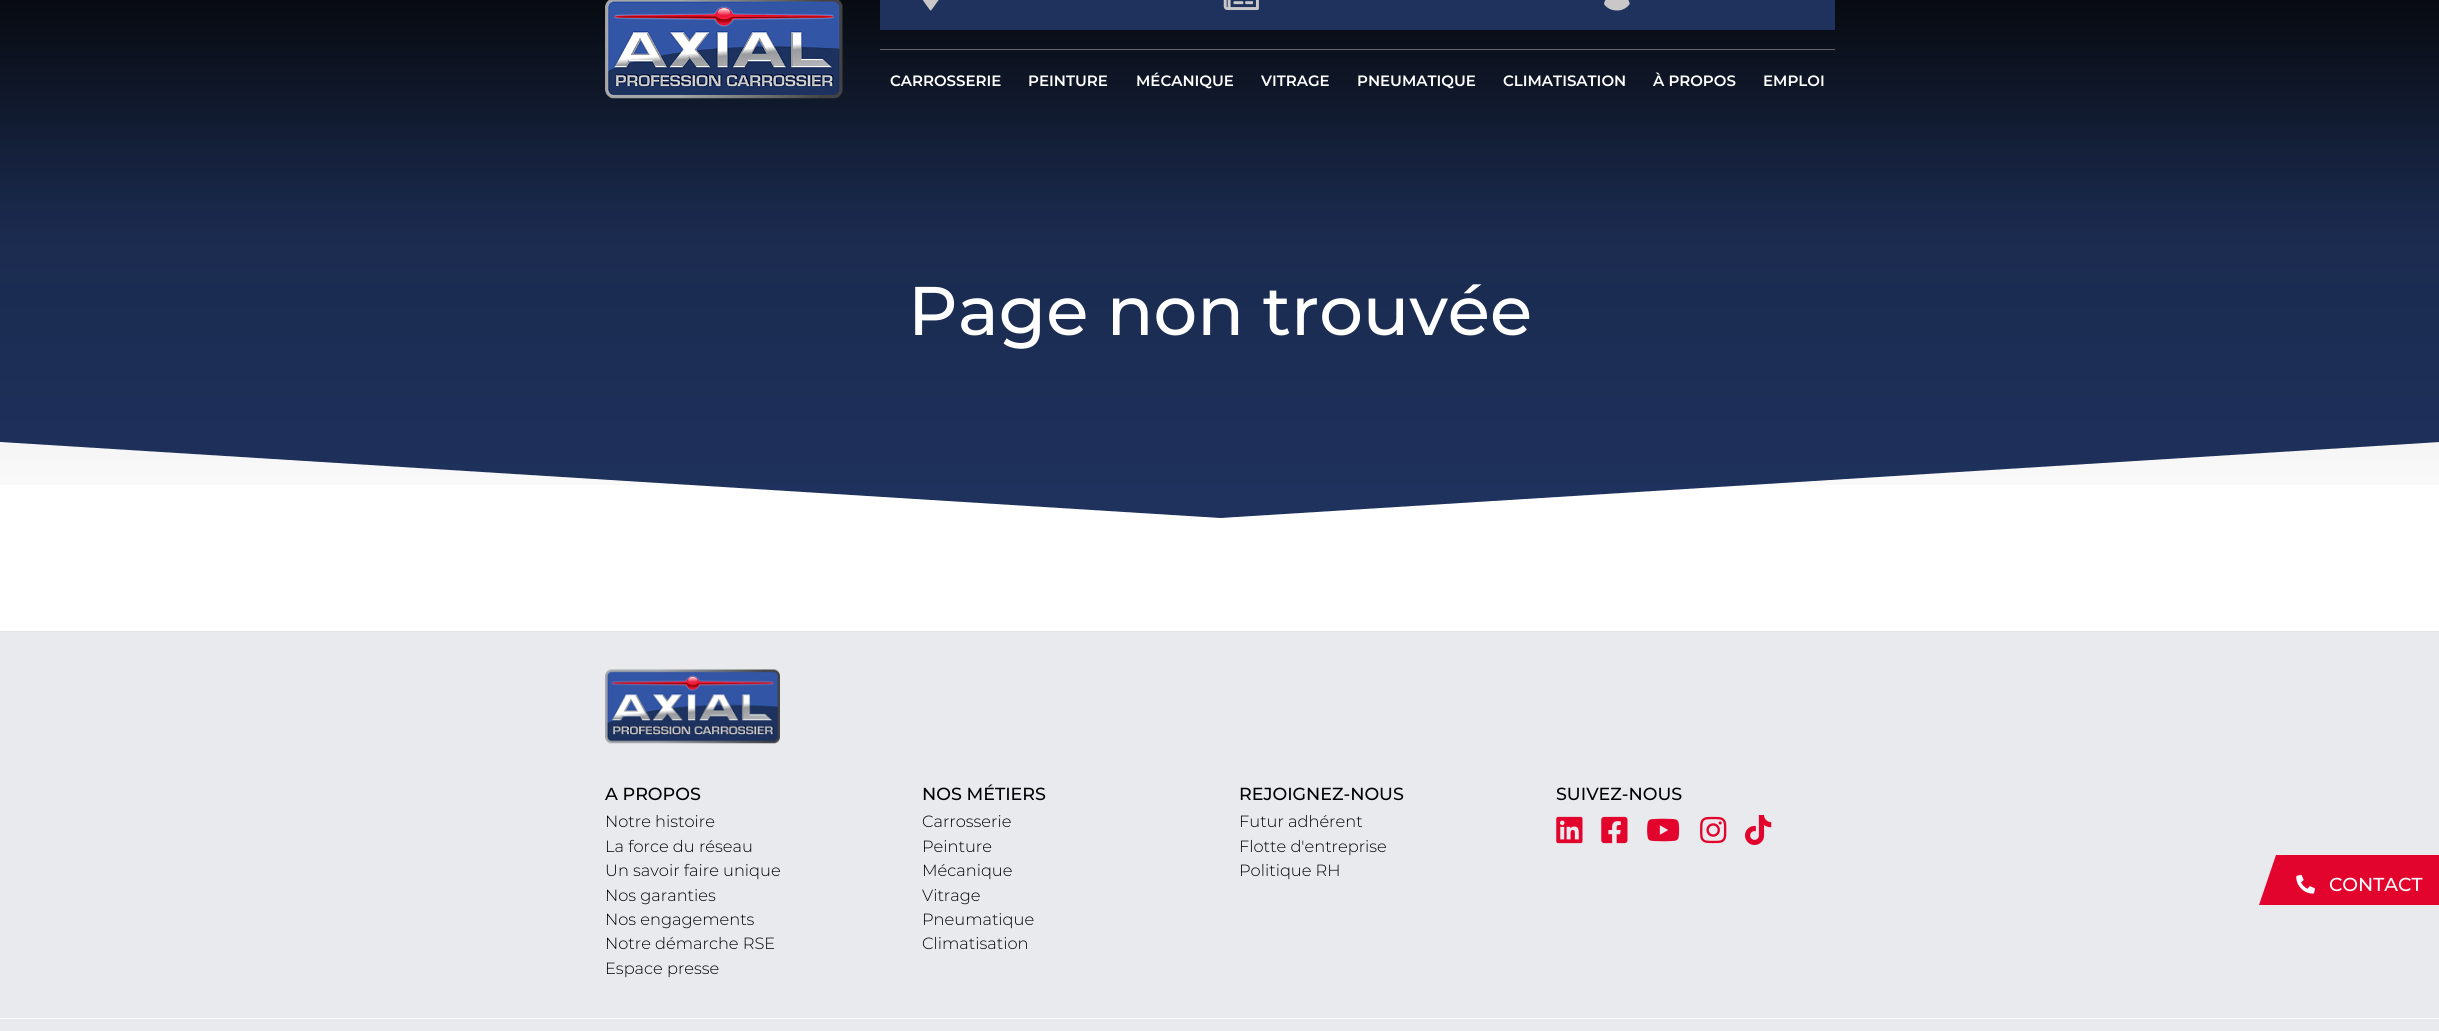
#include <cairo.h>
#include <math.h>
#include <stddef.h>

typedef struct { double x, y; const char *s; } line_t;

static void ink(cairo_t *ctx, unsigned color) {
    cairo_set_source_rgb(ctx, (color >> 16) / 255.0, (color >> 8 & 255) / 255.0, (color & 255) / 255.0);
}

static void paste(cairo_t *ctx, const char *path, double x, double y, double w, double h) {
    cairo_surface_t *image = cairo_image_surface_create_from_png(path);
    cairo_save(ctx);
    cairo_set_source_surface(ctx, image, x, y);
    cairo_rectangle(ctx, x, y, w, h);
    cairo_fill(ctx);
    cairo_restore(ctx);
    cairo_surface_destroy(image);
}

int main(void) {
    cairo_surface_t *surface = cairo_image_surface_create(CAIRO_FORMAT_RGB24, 2439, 1031);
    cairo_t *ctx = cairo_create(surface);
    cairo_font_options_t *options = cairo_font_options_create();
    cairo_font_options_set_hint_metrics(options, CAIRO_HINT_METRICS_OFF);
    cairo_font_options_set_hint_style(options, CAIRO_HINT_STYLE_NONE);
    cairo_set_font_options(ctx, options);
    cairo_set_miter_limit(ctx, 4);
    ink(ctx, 0xFFFFFF);
    cairo_paint(ctx);
    ink(ctx, 0x1F325D);
    cairo_rectangle(ctx, 0, 0, 2439, 518);
    cairo_fill(ctx);
    ink(ctx, 0xFFFFFF);
    cairo_new_path(ctx);
    cairo_move_to(ctx, 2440, 442);
    cairo_line_to(ctx, 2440, 518);
    cairo_line_to(ctx, 1220, 518);
    cairo_close_path(ctx);
    cairo_fill(ctx);
    cairo_new_path(ctx);
    cairo_move_to(ctx, 0, 518);
    cairo_line_to(ctx, 0, 442);
    cairo_line_to(ctx, 1220, 518);
    cairo_close_path(ctx);
    cairo_fill(ctx);
    paste(ctx, "media/5.png", 0, 0, 2439, 485);
    paste(ctx, "media/1.png", 605, 0, 238, 99);
    ink(ctx, 0x1F325D);
    cairo_rectangle(ctx, 880, 0, 955, 30);
    cairo_fill(ctx);
    paste(ctx, "media/2.png", 922, 0, 17, 11);
    paste(ctx, "media/3.png", 1223, 0, 36, 10);
    paste(ctx, "media/4.png", 1604, 0, 26, 11);
    ink(ctx, 0x666666);
    cairo_rectangle(ctx, 880, 49, 955, 1);
    cairo_fill(ctx);
    cairo_select_font_face(ctx, "Montserrat SemiBold", CAIRO_FONT_SLANT_NORMAL, CAIRO_FONT_WEIGHT_NORMAL);
    cairo_set_font_size(ctx, 15);
    ink(ctx, 0xFFFFFF);
    {
        static const line_t items[] = {
            {890, 86, "CARROSSERIE"},
            {1028, 86, "PEINTURE"},
            {1136, 86, "MÉCANIQUE"},
            {1261, 86, "VITRAGE"},
            {1357, 86, "PNEUMATIQUE"},
            {1503, 86, "CLIMATISATION"},
            {1653, 86, "À PROPOS"},
            {1763, 86, "EMPLOI"},
        };
        for (size_t i = 0; i < sizeof items / sizeof *items; i++) {
            cairo_move_to(ctx, items[i].x, items[i].y);
            cairo_show_text(ctx, items[i].s);
        }
    }
    cairo_select_font_face(ctx, "Montserrat Medium", CAIRO_FONT_SLANT_NORMAL, CAIRO_FONT_WEIGHT_NORMAL);
    cairo_set_font_size(ctx, 68.75);
    cairo_move_to(ctx, 908, 335);
    cairo_show_text(ctx, "Page non trouvée");
    ink(ctx, 0xE8EAEE);
    cairo_rectangle(ctx, 0, 632, 2439, 386);
    cairo_fill(ctx);
    ink(ctx, 0xE3042D);
    cairo_new_path(ctx);
    cairo_move_to(ctx, 2259, 905);
    cairo_line_to(ctx, 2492, 905);
    cairo_line_to(ctx, 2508, 855);
    cairo_line_to(ctx, 2276, 855);
    cairo_close_path(ctx);
    cairo_fill(ctx);
    paste(ctx, "media/6.png", 2296, 874, 19, 20);
    cairo_set_font_size(ctx, 18.75);
    ink(ctx, 0xFFFFFF);
    cairo_move_to(ctx, 2329, 891);
    cairo_show_text(ctx, "CONTACT");
    ink(ctx, 0xE5E5E5);
    cairo_rectangle(ctx, 0, 631, 2439, 1);
    cairo_fill(ctx);
    paste(ctx, "media/7.png", 605, 669, 175, 75);
    cairo_set_font_size(ctx, 17.5);
    ink(ctx, 0x000000);
    cairo_move_to(ctx, 605, 800);
    cairo_show_text(ctx, "A PROPOS");
    cairo_select_font_face(ctx, "Montserrat Light", CAIRO_FONT_SLANT_NORMAL, CAIRO_FONT_WEIGHT_NORMAL);
    cairo_set_font_size(ctx, 16.25);
    {
        static const line_t items[] = {
            {605, 827, "Notre histoire"},
            {605, 852, "La force du réseau"},
            {605, 876, "Un savoir faire unique"},
            {605, 901, "Nos garanties"},
            {605, 925, "Nos engagements"},
            {605, 949, "Notre démarche RSE"},
            {605, 974, "Espace presse"},
        };
        for (size_t i = 0; i < sizeof items / sizeof *items; i++) {
            cairo_move_to(ctx, items[i].x, items[i].y);
            cairo_show_text(ctx, items[i].s);
        }
    }
    cairo_select_font_face(ctx, "Montserrat Medium", CAIRO_FONT_SLANT_NORMAL, CAIRO_FONT_WEIGHT_NORMAL);
    cairo_set_font_size(ctx, 17.5);
    cairo_move_to(ctx, 922, 800);
    cairo_show_text(ctx, "NOS MÉTIERS");
    cairo_select_font_face(ctx, "Montserrat Light", CAIRO_FONT_SLANT_NORMAL, CAIRO_FONT_WEIGHT_NORMAL);
    cairo_set_font_size(ctx, 16.25);
    {
        static const line_t items[] = {
            {922, 827, "Carrosserie"},
            {922, 852, "Peinture"},
            {922, 876, "Mécanique"},
            {922, 901, "Vitrage"},
            {922, 925, "Pneumatique"},
            {922, 949, "Climatisation"},
        };
        for (size_t i = 0; i < sizeof items / sizeof *items; i++) {
            cairo_move_to(ctx, items[i].x, items[i].y);
            cairo_show_text(ctx, items[i].s);
        }
    }
    cairo_select_font_face(ctx, "Montserrat Medium", CAIRO_FONT_SLANT_NORMAL, CAIRO_FONT_WEIGHT_NORMAL);
    cairo_set_font_size(ctx, 17.5);
    cairo_move_to(ctx, 1239, 800);
    cairo_show_text(ctx, "REJOIGNEZ-NOUS");
    cairo_select_font_face(ctx, "Montserrat Light", CAIRO_FONT_SLANT_NORMAL, CAIRO_FONT_WEIGHT_NORMAL);
    cairo_set_font_size(ctx, 16.25);
    {
        static const line_t items[] = {
            {1239, 827, "Futur adhérent"},
            {1239, 852, "Flotte d'entreprise"},
            {1239, 876, "Politique RH"},
        };
        for (size_t i = 0; i < sizeof items / sizeof *items; i++) {
            cairo_move_to(ctx, items[i].x, items[i].y);
            cairo_show_text(ctx, items[i].s);
        }
    }
    cairo_select_font_face(ctx, "Montserrat Medium", CAIRO_FONT_SLANT_NORMAL, CAIRO_FONT_WEIGHT_NORMAL);
    cairo_set_font_size(ctx, 17.5);
    cairo_move_to(ctx, 1556, 800);
    cairo_show_text(ctx, "SUIVEZ-NOUS");
    paste(ctx, "media/8.png", 1556, 816, 27, 28);
    paste(ctx, "media/9.png", 1601, 816, 27, 28);
    paste(ctx, "media/10.png", 1647, 818, 33, 24);
    paste(ctx, "media/11.png", 1700, 816, 27, 28);
    paste(ctx, "media/12.png", 1745, 815, 27, 30);
    ink(ctx, 0xE8EAEE);
    cairo_rectangle(ctx, 0, 1019, 2439, 12);
    cairo_fill(ctx);
    cairo_surface_write_to_png(surface, "image.png");
    cairo_font_options_destroy(options);
    cairo_destroy(ctx);
    cairo_surface_destroy(surface);
    return 0;
}
